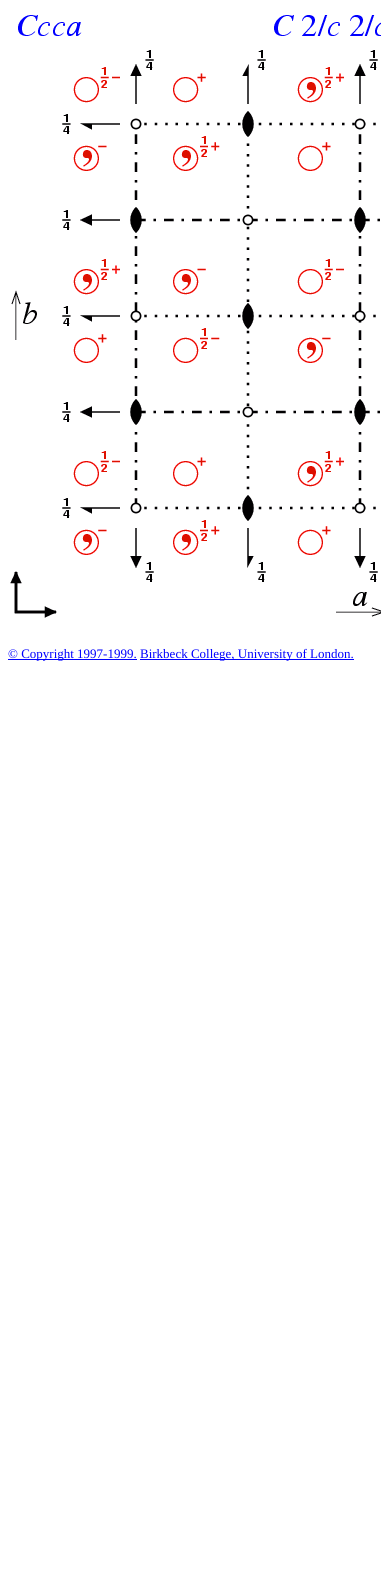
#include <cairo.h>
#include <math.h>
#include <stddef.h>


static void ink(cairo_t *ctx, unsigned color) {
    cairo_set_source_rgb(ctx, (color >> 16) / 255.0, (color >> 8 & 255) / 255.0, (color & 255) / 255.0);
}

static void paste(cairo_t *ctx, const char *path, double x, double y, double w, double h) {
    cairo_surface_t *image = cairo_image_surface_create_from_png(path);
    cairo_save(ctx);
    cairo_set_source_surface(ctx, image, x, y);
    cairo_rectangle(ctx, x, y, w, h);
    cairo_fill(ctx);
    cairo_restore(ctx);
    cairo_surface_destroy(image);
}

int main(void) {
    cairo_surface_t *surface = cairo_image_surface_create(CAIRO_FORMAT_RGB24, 381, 1590);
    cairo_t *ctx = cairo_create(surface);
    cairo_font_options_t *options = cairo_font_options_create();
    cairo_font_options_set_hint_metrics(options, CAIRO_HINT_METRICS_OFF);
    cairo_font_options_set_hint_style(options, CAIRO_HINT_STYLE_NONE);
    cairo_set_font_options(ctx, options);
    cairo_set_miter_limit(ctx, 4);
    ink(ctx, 0xFFFFFF);
    cairo_paint(ctx);
    paste(ctx, "media/1.png", 10, 15, 371, 603);
    ink(ctx, 0x0000FF);
    cairo_rectangle(ctx, 8, 659, 129, 1);
    cairo_fill(ctx);
    cairo_select_font_face(ctx, "Liberation Serif", CAIRO_FONT_SLANT_NORMAL, CAIRO_FONT_WEIGHT_NORMAL);
    cairo_set_font_size(ctx, 13);
    cairo_move_to(ctx, 8, 658);
    cairo_show_text(ctx, "© Copyright 1997-1999.");
    cairo_rectangle(ctx, 140, 659, 214, 1);
    cairo_fill(ctx);
    cairo_move_to(ctx, 140, 658);
    cairo_show_text(ctx, "Birkbeck College, University of London.");
    cairo_surface_write_to_png(surface, "image.png");
    cairo_font_options_destroy(options);
    cairo_destroy(ctx);
    cairo_surface_destroy(surface);
    return 0;
}
